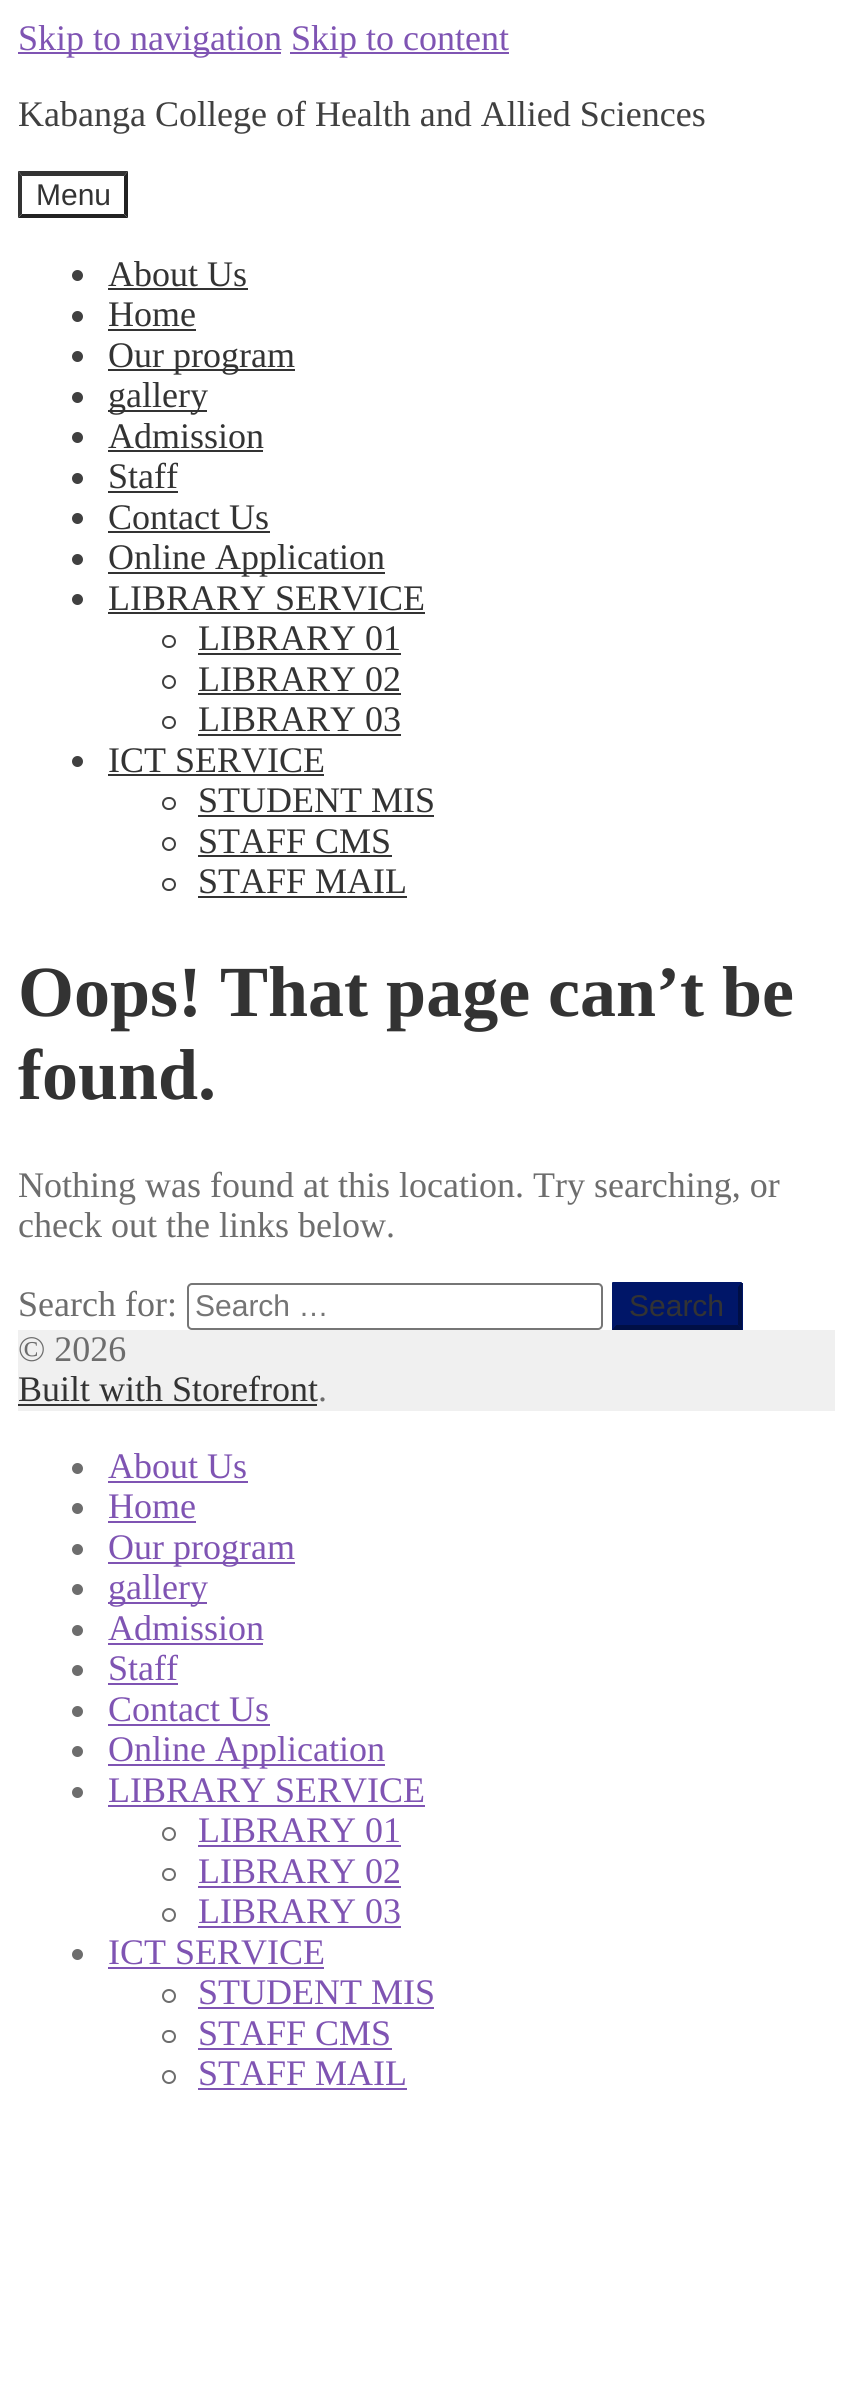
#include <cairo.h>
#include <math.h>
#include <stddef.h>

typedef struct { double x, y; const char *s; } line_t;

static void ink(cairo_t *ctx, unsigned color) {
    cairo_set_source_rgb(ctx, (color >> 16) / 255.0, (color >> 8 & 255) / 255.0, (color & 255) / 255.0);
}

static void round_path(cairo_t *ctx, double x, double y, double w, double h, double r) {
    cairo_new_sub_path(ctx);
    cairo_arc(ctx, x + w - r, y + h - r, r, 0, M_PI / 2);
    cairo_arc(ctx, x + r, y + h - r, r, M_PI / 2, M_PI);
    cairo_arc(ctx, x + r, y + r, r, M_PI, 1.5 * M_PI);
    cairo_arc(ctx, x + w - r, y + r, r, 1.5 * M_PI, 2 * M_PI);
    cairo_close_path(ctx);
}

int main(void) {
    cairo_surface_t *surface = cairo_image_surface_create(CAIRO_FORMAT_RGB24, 851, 2398);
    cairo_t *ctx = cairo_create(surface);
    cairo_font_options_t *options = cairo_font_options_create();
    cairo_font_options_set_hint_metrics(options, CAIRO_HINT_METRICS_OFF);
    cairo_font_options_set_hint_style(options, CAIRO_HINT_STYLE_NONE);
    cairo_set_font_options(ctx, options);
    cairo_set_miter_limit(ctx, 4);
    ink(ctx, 0xFFFFFF);
    cairo_paint(ctx);
    ink(ctx, 0x7F54B3);
    cairo_rectangle(ctx, 18, 52, 263, 2);
    cairo_fill(ctx);
    cairo_select_font_face(ctx, "Liberation Serif", CAIRO_FONT_SLANT_NORMAL, CAIRO_FONT_WEIGHT_NORMAL);
    cairo_set_font_size(ctx, 36);
    cairo_move_to(ctx, 18, 50);
    cairo_show_text(ctx, "Skip to navigation");
    cairo_rectangle(ctx, 290, 52, 219, 2);
    cairo_fill(ctx);
    cairo_move_to(ctx, 291, 50);
    cairo_show_text(ctx, "Skip to content");
    ink(ctx, 0x404040);
    cairo_move_to(ctx, 18, 126);
    cairo_show_text(ctx, "Kabanga College of Health and Allied Sciences");
    ink(ctx, 0x333333);
    cairo_new_path(ctx);
    cairo_move_to(ctx, 18, 171);
    cairo_line_to(ctx, 128, 171);
    cairo_line_to(ctx, 124, 176);
    cairo_line_to(ctx, 22, 176);
    cairo_close_path(ctx);
    cairo_fill(ctx);
    ink(ctx, 0x222222);
    cairo_new_path(ctx);
    cairo_move_to(ctx, 128, 171);
    cairo_line_to(ctx, 128, 218);
    cairo_line_to(ctx, 124, 214);
    cairo_line_to(ctx, 124, 176);
    cairo_close_path(ctx);
    cairo_fill(ctx);
    cairo_new_path(ctx);
    cairo_move_to(ctx, 128, 218);
    cairo_line_to(ctx, 18, 218);
    cairo_line_to(ctx, 22, 214);
    cairo_line_to(ctx, 124, 214);
    cairo_close_path(ctx);
    cairo_fill(ctx);
    ink(ctx, 0x333333);
    cairo_new_path(ctx);
    cairo_move_to(ctx, 18, 218);
    cairo_line_to(ctx, 18, 171);
    cairo_line_to(ctx, 22, 176);
    cairo_line_to(ctx, 22, 214);
    cairo_close_path(ctx);
    cairo_fill(ctx);
    cairo_select_font_face(ctx, "Liberation Sans", CAIRO_FONT_SLANT_NORMAL, CAIRO_FONT_WEIGHT_NORMAL);
    cairo_set_font_size(ctx, 30);
    cairo_move_to(ctx, 36, 205);
    cairo_show_text(ctx, "Menu");
    ink(ctx, 0x404040);
    cairo_new_path(ctx);
    cairo_arc(ctx, 77.5, 275.5, 5.5, 0, 2 * M_PI);
    cairo_fill(ctx);
    cairo_select_font_face(ctx, "Liberation Serif", CAIRO_FONT_SLANT_NORMAL, CAIRO_FONT_WEIGHT_NORMAL);
    cairo_set_font_size(ctx, 36);
    ink(ctx, 0x333333);
    cairo_move_to(ctx, 108, 286);
    cairo_show_text(ctx, "About Us");
    cairo_rectangle(ctx, 108, 288, 140, 2);
    cairo_fill(ctx);
    ink(ctx, 0x404040);
    cairo_arc(ctx, 77.5, 316.5, 5.5, 0, 2 * M_PI);
    cairo_fill(ctx);
    ink(ctx, 0x333333);
    cairo_move_to(ctx, 108, 326);
    cairo_show_text(ctx, "Home");
    cairo_rectangle(ctx, 108, 329, 88, 2);
    cairo_fill(ctx);
    ink(ctx, 0x404040);
    cairo_arc(ctx, 77.5, 356.5, 5.5, 0, 2 * M_PI);
    cairo_fill(ctx);
    ink(ctx, 0x333333);
    cairo_rectangle(ctx, 108, 369, 187, 2);
    cairo_fill(ctx);
    cairo_move_to(ctx, 108, 367);
    cairo_show_text(ctx, "Our program");
    ink(ctx, 0x404040);
    cairo_new_path(ctx);
    cairo_arc(ctx, 77.5, 397.5, 5.5, 0, 2 * M_PI);
    cairo_fill(ctx);
    ink(ctx, 0x333333);
    cairo_rectangle(ctx, 108, 410, 99, 2);
    cairo_fill(ctx);
    cairo_move_to(ctx, 108, 407);
    cairo_show_text(ctx, "gallery");
    ink(ctx, 0x404040);
    cairo_new_path(ctx);
    cairo_arc(ctx, 77.5, 437.5, 5.5, 0, 2 * M_PI);
    cairo_fill(ctx);
    ink(ctx, 0x333333);
    cairo_move_to(ctx, 108, 448);
    cairo_show_text(ctx, "Admission");
    cairo_rectangle(ctx, 108, 450, 155, 2);
    cairo_fill(ctx);
    ink(ctx, 0x404040);
    cairo_arc(ctx, 77.5, 478.5, 5.5, 0, 2 * M_PI);
    cairo_fill(ctx);
    ink(ctx, 0x333333);
    cairo_move_to(ctx, 108, 488);
    cairo_show_text(ctx, "Staff");
    cairo_rectangle(ctx, 108, 491, 70, 2);
    cairo_fill(ctx);
    ink(ctx, 0x404040);
    cairo_arc(ctx, 77.5, 518.5, 5.5, 0, 2 * M_PI);
    cairo_fill(ctx);
    ink(ctx, 0x333333);
    cairo_move_to(ctx, 108, 529);
    cairo_show_text(ctx, "Contact Us");
    cairo_rectangle(ctx, 108, 531, 162, 2);
    cairo_fill(ctx);
    ink(ctx, 0x404040);
    cairo_arc(ctx, 77.5, 559.5, 5.5, 0, 2 * M_PI);
    cairo_fill(ctx);
    ink(ctx, 0x333333);
    cairo_rectangle(ctx, 108, 572, 277, 2);
    cairo_fill(ctx);
    cairo_move_to(ctx, 108, 569);
    cairo_show_text(ctx, "Online Application");
    ink(ctx, 0x404040);
    cairo_new_path(ctx);
    cairo_arc(ctx, 77.5, 599.5, 5.5, 0, 2 * M_PI);
    cairo_fill(ctx);
    ink(ctx, 0x333333);
    cairo_move_to(ctx, 108, 610);
    cairo_show_text(ctx, "LIBRARY SERVICE");
    cairo_rectangle(ctx, 108, 612, 317, 2);
    cairo_fill(ctx);
    round_path(ctx, 163, 636, 12, 11, 5.5);
    ink(ctx, 0x404040);
    cairo_stroke(ctx);
    ink(ctx, 0x333333);
    cairo_move_to(ctx, 198, 650);
    cairo_show_text(ctx, "LIBRARY 01");
    cairo_rectangle(ctx, 198, 653, 203, 2);
    cairo_fill(ctx);
    cairo_arc(ctx, 169, 682, 6, 0, 2 * M_PI);
    ink(ctx, 0x404040);
    cairo_stroke(ctx);
    ink(ctx, 0x333333);
    cairo_move_to(ctx, 198, 691);
    cairo_show_text(ctx, "LIBRARY 02");
    cairo_rectangle(ctx, 198, 693, 203, 2);
    cairo_fill(ctx);
    round_path(ctx, 163, 717, 12, 11, 5.5);
    ink(ctx, 0x404040);
    cairo_stroke(ctx);
    ink(ctx, 0x333333);
    cairo_move_to(ctx, 198, 731);
    cairo_show_text(ctx, "LIBRARY 03");
    cairo_rectangle(ctx, 198, 734, 203, 2);
    cairo_fill(ctx);
    ink(ctx, 0x404040);
    cairo_arc(ctx, 77.5, 761.5, 5.5, 0, 2 * M_PI);
    cairo_fill(ctx);
    ink(ctx, 0x333333);
    cairo_move_to(ctx, 108, 772);
    cairo_show_text(ctx, "ICT SERVICE");
    cairo_rectangle(ctx, 108, 774, 216, 2);
    cairo_fill(ctx);
    round_path(ctx, 163, 798, 12, 11, 5.5);
    ink(ctx, 0x404040);
    cairo_stroke(ctx);
    ink(ctx, 0x333333);
    cairo_move_to(ctx, 198, 812);
    cairo_show_text(ctx, "STUDENT MIS");
    cairo_rectangle(ctx, 198, 815, 236, 2);
    cairo_fill(ctx);
    cairo_arc(ctx, 169, 844, 6, 0, 2 * M_PI);
    ink(ctx, 0x404040);
    cairo_stroke(ctx);
    ink(ctx, 0x333333);
    cairo_move_to(ctx, 198, 853);
    cairo_show_text(ctx, "STAFF CMS");
    cairo_rectangle(ctx, 198, 855, 194, 2);
    cairo_fill(ctx);
    round_path(ctx, 163, 879, 12, 11, 5.5);
    ink(ctx, 0x404040);
    cairo_stroke(ctx);
    ink(ctx, 0x333333);
    cairo_move_to(ctx, 198, 893);
    cairo_show_text(ctx, "STAFF MAIL");
    cairo_rectangle(ctx, 198, 896, 209, 2);
    cairo_fill(ctx);
    cairo_select_font_face(ctx, "Liberation Serif", CAIRO_FONT_SLANT_NORMAL, CAIRO_FONT_WEIGHT_BOLD);
    cairo_set_font_size(ctx, 72);
    cairo_move_to(ctx, 18, 1016);
    cairo_show_text(ctx, "Oops! That page can’t be");
    cairo_move_to(ctx, 18, 1099);
    cairo_show_text(ctx, "found.");
    cairo_select_font_face(ctx, "Liberation Serif", CAIRO_FONT_SLANT_NORMAL, CAIRO_FONT_WEIGHT_NORMAL);
    cairo_set_font_size(ctx, 36);
    ink(ctx, 0x6D6D6D);
    {
        static const line_t items[] = {
            {18, 1197, "Nothing was found at this location. Try searching, or"},
            {18, 1237, "check out the links below."},
            {18, 1316, "Search for:"},
        };
        for (size_t i = 0; i < sizeof items / sizeof *items; i++) {
            cairo_move_to(ctx, items[i].x, items[i].y);
            cairo_show_text(ctx, items[i].s);
        }
    }
    round_path(ctx, 188, 1284, 414, 45, 4);
    ink(ctx, 0x767676);
    cairo_stroke(ctx);
    cairo_select_font_face(ctx, "Liberation Sans", CAIRO_FONT_SLANT_NORMAL, CAIRO_FONT_WEIGHT_NORMAL);
    cairo_set_font_size(ctx, 30);
    ink(ctx, 0x757575);
    cairo_move_to(ctx, 195, 1316);
    cairo_show_text(ctx, "Search …");
    ink(ctx, 0x001668);
    cairo_rectangle(ctx, 612, 1283, 131, 47);
    cairo_fill(ctx);
    cairo_new_path(ctx);
    cairo_move_to(ctx, 612, 1282);
    cairo_line_to(ctx, 742, 1282);
    cairo_line_to(ctx, 738, 1287);
    cairo_line_to(ctx, 616, 1287);
    cairo_close_path(ctx);
    cairo_fill(ctx);
    ink(ctx, 0x000F45);
    cairo_new_path(ctx);
    cairo_move_to(ctx, 742, 1282);
    cairo_line_to(ctx, 742, 1330);
    cairo_line_to(ctx, 738, 1325);
    cairo_line_to(ctx, 738, 1287);
    cairo_close_path(ctx);
    cairo_fill(ctx);
    cairo_new_path(ctx);
    cairo_move_to(ctx, 742, 1330);
    cairo_line_to(ctx, 612, 1330);
    cairo_line_to(ctx, 616, 1325);
    cairo_line_to(ctx, 738, 1325);
    cairo_close_path(ctx);
    cairo_fill(ctx);
    ink(ctx, 0x001668);
    cairo_new_path(ctx);
    cairo_move_to(ctx, 612, 1330);
    cairo_line_to(ctx, 612, 1282);
    cairo_line_to(ctx, 616, 1287);
    cairo_line_to(ctx, 616, 1325);
    cairo_close_path(ctx);
    cairo_fill(ctx);
    ink(ctx, 0x333333);
    cairo_move_to(ctx, 629, 1316);
    cairo_show_text(ctx, "Search");
    ink(ctx, 0xF0F0F0);
    cairo_rectangle(ctx, 18, 1330, 817, 81);
    cairo_fill(ctx);
    cairo_select_font_face(ctx, "Liberation Serif", CAIRO_FONT_SLANT_NORMAL, CAIRO_FONT_WEIGHT_NORMAL);
    cairo_set_font_size(ctx, 36);
    ink(ctx, 0x6D6D6D);
    cairo_move_to(ctx, 18, 1361);
    cairo_show_text(ctx, "© 2026");
    ink(ctx, 0x333333);
    cairo_move_to(ctx, 18, 1401);
    cairo_show_text(ctx, "Built with Storefront");
    cairo_rectangle(ctx, 18, 1404, 299, 2);
    cairo_fill(ctx);
    ink(ctx, 0x6D6D6D);
    cairo_move_to(ctx, 318, 1401);
    cairo_show_text(ctx, ".");
    cairo_new_path(ctx);
    cairo_arc(ctx, 77.5, 1468.5, 5.5, 0, 2 * M_PI);
    cairo_fill(ctx);
    ink(ctx, 0x7F54B3);
    cairo_move_to(ctx, 108, 1478);
    cairo_show_text(ctx, "About Us");
    cairo_rectangle(ctx, 108, 1481, 140, 2);
    cairo_fill(ctx);
    ink(ctx, 0x6D6D6D);
    cairo_arc(ctx, 77.5, 1508.5, 5.5, 0, 2 * M_PI);
    cairo_fill(ctx);
    ink(ctx, 0x7F54B3);
    cairo_move_to(ctx, 108, 1518);
    cairo_show_text(ctx, "Home");
    cairo_rectangle(ctx, 108, 1521, 88, 2);
    cairo_fill(ctx);
    ink(ctx, 0x6D6D6D);
    cairo_arc(ctx, 77.5, 1549.5, 5.5, 0, 2 * M_PI);
    cairo_fill(ctx);
    ink(ctx, 0x7F54B3);
    cairo_rectangle(ctx, 108, 1562, 187, 2);
    cairo_fill(ctx);
    cairo_move_to(ctx, 108, 1559);
    cairo_show_text(ctx, "Our program");
    ink(ctx, 0x6D6D6D);
    cairo_new_path(ctx);
    cairo_arc(ctx, 77.5, 1589.5, 5.5, 0, 2 * M_PI);
    cairo_fill(ctx);
    ink(ctx, 0x7F54B3);
    cairo_rectangle(ctx, 108, 1602, 99, 2);
    cairo_fill(ctx);
    cairo_move_to(ctx, 108, 1599);
    cairo_show_text(ctx, "gallery");
    ink(ctx, 0x6D6D6D);
    cairo_new_path(ctx);
    cairo_arc(ctx, 77.5, 1630.5, 5.5, 0, 2 * M_PI);
    cairo_fill(ctx);
    ink(ctx, 0x7F54B3);
    cairo_move_to(ctx, 108, 1640);
    cairo_show_text(ctx, "Admission");
    cairo_rectangle(ctx, 108, 1643, 155, 2);
    cairo_fill(ctx);
    ink(ctx, 0x6D6D6D);
    cairo_arc(ctx, 77.5, 1670.5, 5.5, 0, 2 * M_PI);
    cairo_fill(ctx);
    ink(ctx, 0x7F54B3);
    cairo_move_to(ctx, 108, 1680);
    cairo_show_text(ctx, "Staff");
    cairo_rectangle(ctx, 108, 1683, 70, 2);
    cairo_fill(ctx);
    ink(ctx, 0x6D6D6D);
    cairo_arc(ctx, 77.5, 1711.5, 5.5, 0, 2 * M_PI);
    cairo_fill(ctx);
    ink(ctx, 0x7F54B3);
    cairo_move_to(ctx, 108, 1721);
    cairo_show_text(ctx, "Contact Us");
    cairo_rectangle(ctx, 108, 1724, 162, 2);
    cairo_fill(ctx);
    ink(ctx, 0x6D6D6D);
    cairo_arc(ctx, 77.5, 1751.5, 5.5, 0, 2 * M_PI);
    cairo_fill(ctx);
    ink(ctx, 0x7F54B3);
    cairo_rectangle(ctx, 108, 1764, 277, 2);
    cairo_fill(ctx);
    cairo_move_to(ctx, 108, 1761);
    cairo_show_text(ctx, "Online Application");
    ink(ctx, 0x6D6D6D);
    cairo_new_path(ctx);
    cairo_arc(ctx, 77.5, 1792.5, 5.5, 0, 2 * M_PI);
    cairo_fill(ctx);
    ink(ctx, 0x7F54B3);
    cairo_move_to(ctx, 108, 1802);
    cairo_show_text(ctx, "LIBRARY SERVICE");
    cairo_rectangle(ctx, 108, 1805, 317, 2);
    cairo_fill(ctx);
    cairo_arc(ctx, 169, 1834, 6, 0, 2 * M_PI);
    ink(ctx, 0x6D6D6D);
    cairo_stroke(ctx);
    ink(ctx, 0x7F54B3);
    cairo_move_to(ctx, 198, 1842);
    cairo_show_text(ctx, "LIBRARY 01");
    cairo_rectangle(ctx, 198, 1845, 203, 2);
    cairo_fill(ctx);
    round_path(ctx, 163, 1869, 12, 11, 5.5);
    ink(ctx, 0x6D6D6D);
    cairo_stroke(ctx);
    ink(ctx, 0x7F54B3);
    cairo_move_to(ctx, 198, 1883);
    cairo_show_text(ctx, "LIBRARY 02");
    cairo_rectangle(ctx, 198, 1886, 203, 2);
    cairo_fill(ctx);
    cairo_arc(ctx, 169, 1915, 6, 0, 2 * M_PI);
    ink(ctx, 0x6D6D6D);
    cairo_stroke(ctx);
    ink(ctx, 0x7F54B3);
    cairo_move_to(ctx, 198, 1923);
    cairo_show_text(ctx, "LIBRARY 03");
    cairo_rectangle(ctx, 198, 1926, 203, 2);
    cairo_fill(ctx);
    ink(ctx, 0x6D6D6D);
    cairo_arc(ctx, 77.5, 1954.5, 5.5, 0, 2 * M_PI);
    cairo_fill(ctx);
    ink(ctx, 0x7F54B3);
    cairo_move_to(ctx, 108, 1964);
    cairo_show_text(ctx, "ICT SERVICE");
    cairo_rectangle(ctx, 108, 1967, 216, 2);
    cairo_fill(ctx);
    cairo_arc(ctx, 169, 1996, 6, 0, 2 * M_PI);
    ink(ctx, 0x6D6D6D);
    cairo_stroke(ctx);
    ink(ctx, 0x7F54B3);
    cairo_move_to(ctx, 198, 2004);
    cairo_show_text(ctx, "STUDENT MIS");
    cairo_rectangle(ctx, 198, 2007, 236, 2);
    cairo_fill(ctx);
    round_path(ctx, 163, 2031, 12, 11, 5.5);
    ink(ctx, 0x6D6D6D);
    cairo_stroke(ctx);
    ink(ctx, 0x7F54B3);
    cairo_move_to(ctx, 198, 2045);
    cairo_show_text(ctx, "STAFF CMS");
    cairo_rectangle(ctx, 198, 2048, 194, 2);
    cairo_fill(ctx);
    cairo_arc(ctx, 169, 2077, 6, 0, 2 * M_PI);
    ink(ctx, 0x6D6D6D);
    cairo_stroke(ctx);
    ink(ctx, 0x7F54B3);
    cairo_move_to(ctx, 198, 2085);
    cairo_show_text(ctx, "STAFF MAIL");
    cairo_rectangle(ctx, 198, 2088, 209, 2);
    cairo_fill(ctx);
    cairo_surface_write_to_png(surface, "image.png");
    cairo_font_options_destroy(options);
    cairo_destroy(ctx);
    cairo_surface_destroy(surface);
    return 0;
}
